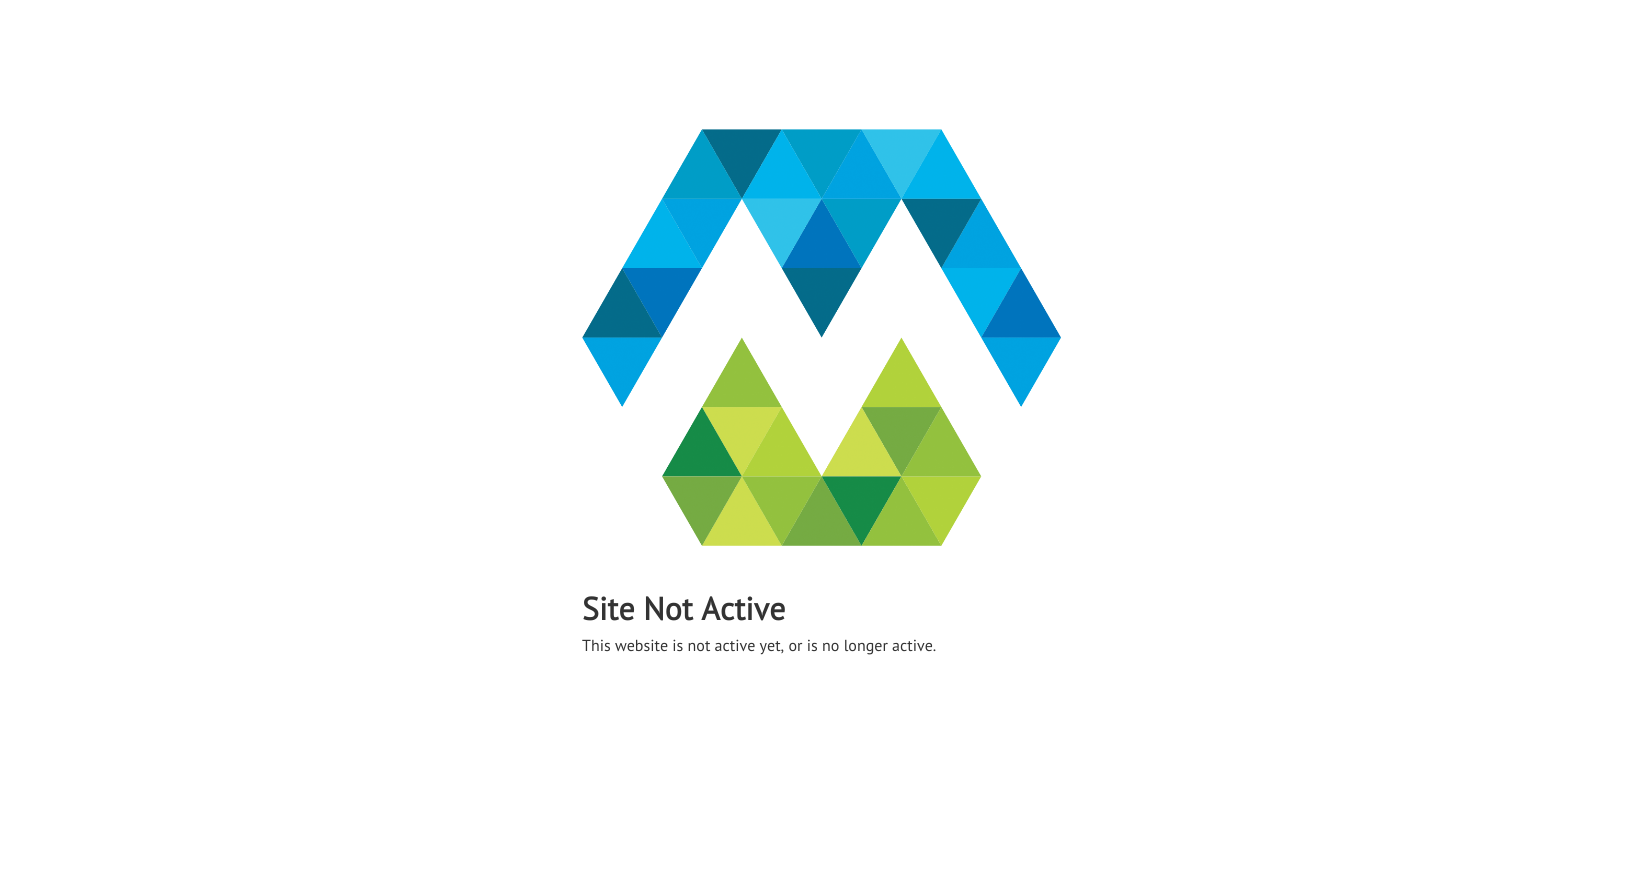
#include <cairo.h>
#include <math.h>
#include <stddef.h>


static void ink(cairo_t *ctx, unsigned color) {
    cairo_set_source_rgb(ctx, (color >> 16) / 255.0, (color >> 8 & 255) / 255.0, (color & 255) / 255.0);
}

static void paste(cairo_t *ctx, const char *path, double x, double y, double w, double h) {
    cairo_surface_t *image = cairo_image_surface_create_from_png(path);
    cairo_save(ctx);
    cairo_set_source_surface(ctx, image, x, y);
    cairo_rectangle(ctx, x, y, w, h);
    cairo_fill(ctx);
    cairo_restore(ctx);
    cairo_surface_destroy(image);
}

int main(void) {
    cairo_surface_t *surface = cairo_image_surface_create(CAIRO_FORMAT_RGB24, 1643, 872);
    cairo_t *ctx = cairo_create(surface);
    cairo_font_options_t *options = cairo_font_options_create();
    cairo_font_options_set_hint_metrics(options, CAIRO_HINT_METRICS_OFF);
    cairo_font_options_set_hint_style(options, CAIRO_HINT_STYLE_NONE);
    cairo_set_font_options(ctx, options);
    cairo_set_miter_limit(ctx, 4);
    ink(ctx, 0xFFFFFF);
    cairo_paint(ctx);
    paste(ctx, "media/1.png", 582, 129, 479, 417);
    cairo_select_font_face(ctx, "PT Sans", CAIRO_FONT_SLANT_NORMAL, CAIRO_FONT_WEIGHT_BOLD);
    cairo_set_font_size(ctx, 32);
    ink(ctx, 0x333333);
    cairo_move_to(ctx, 582, 620);
    cairo_show_text(ctx, "Site Not Active");
    cairo_select_font_face(ctx, "PT Sans", CAIRO_FONT_SLANT_NORMAL, CAIRO_FONT_WEIGHT_NORMAL);
    cairo_set_font_size(ctx, 16);
    cairo_move_to(ctx, 582, 651);
    cairo_show_text(ctx, "This website is not active yet, or is no longer active.");
    cairo_surface_write_to_png(surface, "image.png");
    cairo_font_options_destroy(options);
    cairo_destroy(ctx);
    cairo_surface_destroy(surface);
    return 0;
}
